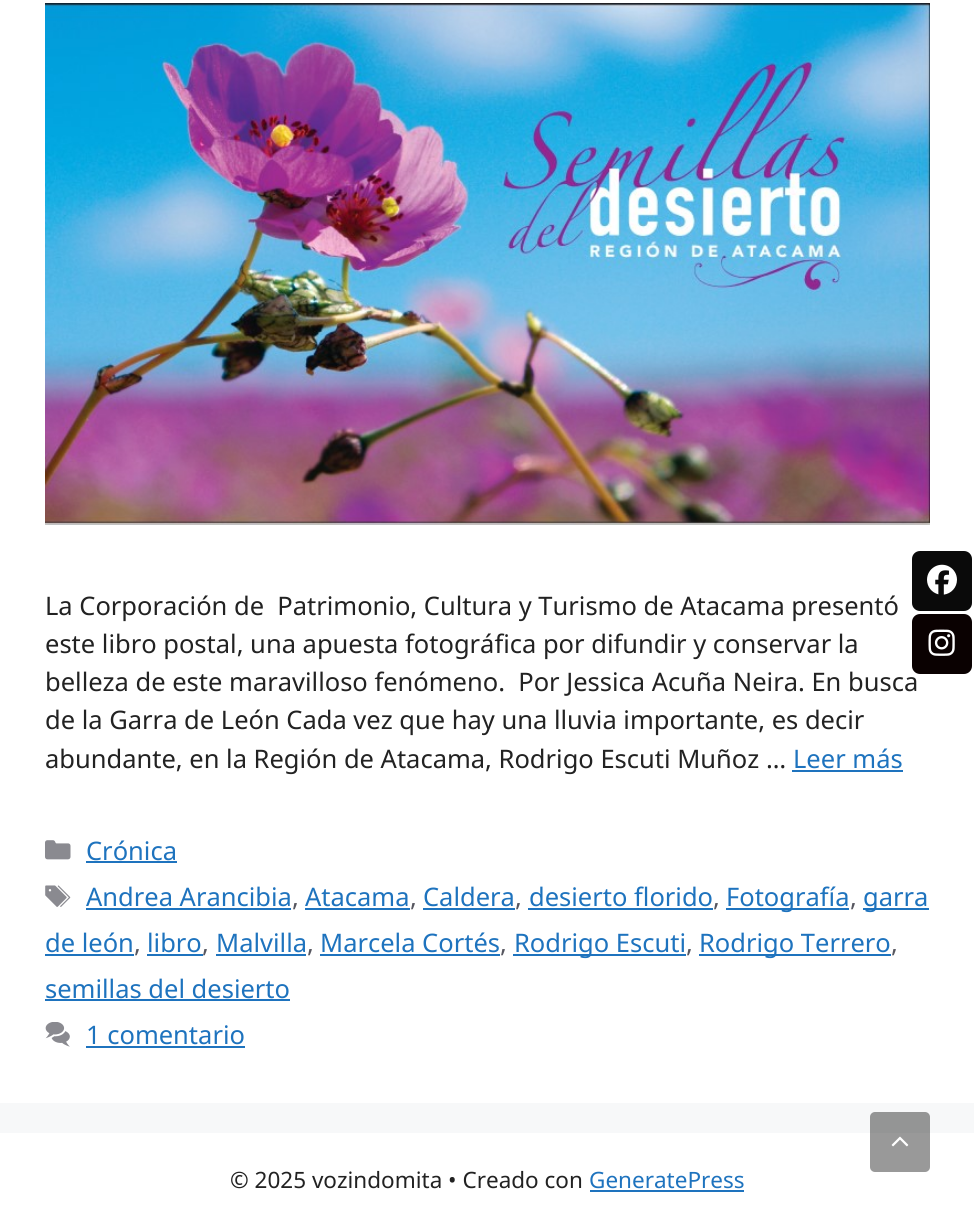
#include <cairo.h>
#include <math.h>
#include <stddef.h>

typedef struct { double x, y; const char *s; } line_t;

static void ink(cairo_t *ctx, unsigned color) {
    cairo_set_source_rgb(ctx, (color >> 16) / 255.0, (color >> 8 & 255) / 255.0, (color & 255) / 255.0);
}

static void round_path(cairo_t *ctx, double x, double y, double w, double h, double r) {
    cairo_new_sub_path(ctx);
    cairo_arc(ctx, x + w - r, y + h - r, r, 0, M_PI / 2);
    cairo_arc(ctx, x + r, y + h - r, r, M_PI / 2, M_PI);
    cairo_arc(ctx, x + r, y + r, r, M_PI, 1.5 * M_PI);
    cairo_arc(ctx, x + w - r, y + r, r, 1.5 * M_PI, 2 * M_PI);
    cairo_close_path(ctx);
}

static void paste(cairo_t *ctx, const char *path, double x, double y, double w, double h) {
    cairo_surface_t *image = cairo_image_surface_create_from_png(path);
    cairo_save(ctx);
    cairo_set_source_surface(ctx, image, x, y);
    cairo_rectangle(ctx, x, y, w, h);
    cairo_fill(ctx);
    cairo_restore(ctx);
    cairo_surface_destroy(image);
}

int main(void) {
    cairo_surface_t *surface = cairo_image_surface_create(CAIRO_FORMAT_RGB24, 974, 1216);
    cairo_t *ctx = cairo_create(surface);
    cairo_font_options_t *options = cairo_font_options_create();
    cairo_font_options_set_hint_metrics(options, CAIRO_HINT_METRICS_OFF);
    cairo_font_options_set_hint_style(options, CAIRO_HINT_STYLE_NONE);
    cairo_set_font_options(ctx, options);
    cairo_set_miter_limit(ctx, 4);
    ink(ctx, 0xF7F8F9);
    cairo_paint(ctx);
    ink(ctx, 0xFFFFFF);
    cairo_rectangle(ctx, 0, 0, 974, 1103);
    cairo_fill(ctx);
    paste(ctx, "media/1.png", 45, 3, 885, 522);
    cairo_select_font_face(ctx, "Noto Sans", CAIRO_FONT_SLANT_NORMAL, CAIRO_FONT_WEIGHT_NORMAL);
    cairo_set_font_size(ctx, 25.5);
    ink(ctx, 0x222222);
    {
        static const line_t items[] = {
            {45, 615, "La Corporación de  Patrimonio, Cultura y Turismo de Atacama presentó"},
            {45, 653, "este libro postal, una apuesta fotográfica por difundir y conservar la"},
            {45, 691, "belleza de este maravilloso fenómeno.  Por Jessica Acuña Neira. En busca"},
            {45, 729, "de la Garra de León Cada vez que hay una lluvia importante, es decir"},
            {45, 768, "abundante, en la Región de Atacama, Rodrigo Escuti Muñoz …"},
        };
        for (size_t i = 0; i < sizeof items / sizeof *items; i++) {
            cairo_move_to(ctx, items[i].x, items[i].y);
            cairo_show_text(ctx, items[i].s);
        }
    }
    ink(ctx, 0x1E73BE);
    cairo_move_to(ctx, 793, 768);
    cairo_show_text(ctx, "Leer más");
    cairo_rectangle(ctx, 792, 770, 111, 2);
    cairo_fill(ctx);
    paste(ctx, "media/2.png", 45, 840, 26, 20);
    cairo_move_to(ctx, 86, 860);
    cairo_show_text(ctx, "Crónica");
    cairo_rectangle(ctx, 86, 861, 91, 2);
    cairo_fill(ctx);
    paste(ctx, "media/3.png", 45, 885, 26, 22);
    cairo_move_to(ctx, 86, 906);
    cairo_show_text(ctx, "Andrea Arancibia");
    cairo_rectangle(ctx, 86, 908, 205, 2);
    cairo_fill(ctx);
    ink(ctx, 0x575760);
    cairo_move_to(ctx, 292, 906);
    cairo_show_text(ctx, ",");
    ink(ctx, 0x1E73BE);
    cairo_move_to(ctx, 305, 906);
    cairo_show_text(ctx, "Atacama");
    cairo_rectangle(ctx, 305, 908, 105, 2);
    cairo_fill(ctx);
    ink(ctx, 0x575760);
    cairo_move_to(ctx, 410, 906);
    cairo_show_text(ctx, ",");
    ink(ctx, 0x1E73BE);
    cairo_move_to(ctx, 423, 906);
    cairo_show_text(ctx, "Caldera");
    cairo_rectangle(ctx, 423, 908, 92, 2);
    cairo_fill(ctx);
    ink(ctx, 0x575760);
    cairo_move_to(ctx, 515, 906);
    cairo_show_text(ctx, ",");
    ink(ctx, 0x1E73BE);
    cairo_move_to(ctx, 529, 906);
    cairo_show_text(ctx, "desierto florido");
    cairo_rectangle(ctx, 528, 908, 185, 2);
    cairo_fill(ctx);
    ink(ctx, 0x575760);
    cairo_move_to(ctx, 713, 906);
    cairo_show_text(ctx, ",");
    ink(ctx, 0x1E73BE);
    cairo_rectangle(ctx, 726, 908, 123, 2);
    cairo_fill(ctx);
    cairo_move_to(ctx, 726, 906);
    cairo_show_text(ctx, "Fotografía");
    ink(ctx, 0x575760);
    cairo_move_to(ctx, 850, 906);
    cairo_show_text(ctx, ",");
    ink(ctx, 0x1E73BE);
    cairo_rectangle(ctx, 863, 908, 66, 2);
    cairo_fill(ctx);
    cairo_move_to(ctx, 863, 906);
    cairo_show_text(ctx, "garra");
    cairo_move_to(ctx, 45, 952);
    cairo_show_text(ctx, "de león");
    cairo_rectangle(ctx, 45, 954, 89, 2);
    cairo_fill(ctx);
    ink(ctx, 0x575760);
    cairo_move_to(ctx, 134, 952);
    cairo_show_text(ctx, ",");
    ink(ctx, 0x1E73BE);
    cairo_move_to(ctx, 147, 952);
    cairo_show_text(ctx, "libro");
    cairo_rectangle(ctx, 147, 954, 56, 2);
    cairo_fill(ctx);
    ink(ctx, 0x575760);
    cairo_move_to(ctx, 202, 952);
    cairo_show_text(ctx, ",");
    ink(ctx, 0x1E73BE);
    cairo_move_to(ctx, 216, 952);
    cairo_show_text(ctx, "Malvilla");
    cairo_rectangle(ctx, 216, 954, 90, 2);
    cairo_fill(ctx);
    ink(ctx, 0x575760);
    cairo_move_to(ctx, 307, 952);
    cairo_show_text(ctx, ",");
    ink(ctx, 0x1E73BE);
    cairo_move_to(ctx, 320, 952);
    cairo_show_text(ctx, "Marcela Cortés");
    cairo_rectangle(ctx, 320, 954, 180, 2);
    cairo_fill(ctx);
    ink(ctx, 0x575760);
    cairo_move_to(ctx, 500, 952);
    cairo_show_text(ctx, ",");
    ink(ctx, 0x1E73BE);
    cairo_rectangle(ctx, 513, 954, 173, 2);
    cairo_fill(ctx);
    cairo_move_to(ctx, 514, 952);
    cairo_show_text(ctx, "Rodrigo Escuti");
    ink(ctx, 0x575760);
    cairo_move_to(ctx, 686, 952);
    cairo_show_text(ctx, ",");
    ink(ctx, 0x1E73BE);
    cairo_rectangle(ctx, 699, 954, 192, 2);
    cairo_fill(ctx);
    cairo_move_to(ctx, 699, 952);
    cairo_show_text(ctx, "Rodrigo Terrero");
    ink(ctx, 0x575760);
    cairo_move_to(ctx, 891, 952);
    cairo_show_text(ctx, ",");
    ink(ctx, 0x1E73BE);
    cairo_move_to(ctx, 45, 998);
    cairo_show_text(ctx, "semillas del desierto");
    cairo_rectangle(ctx, 45, 999, 245, 2);
    cairo_fill(ctx);
    paste(ctx, "media/4.png", 45, 1022, 25, 25);
    cairo_move_to(ctx, 86, 1044);
    cairo_show_text(ctx, "1 comentario");
    cairo_rectangle(ctx, 86, 1046, 159, 2);
    cairo_fill(ctx);
    ink(ctx, 0x0A0A0A);
    round_path(ctx, 912, 551, 60, 60, 8);
    cairo_fill(ctx);
    paste(ctx, "media/5.png", 927, 564, 30, 31);
    ink(ctx, 0x0A0101);
    round_path(ctx, 912, 614, 60, 60, 8);
    cairo_fill(ctx);
    paste(ctx, "media/6.png", 928, 629, 27, 27);
    ink(ctx, 0xFFFFFF);
    cairo_rectangle(ctx, 0, 1133, 974, 83);
    cairo_fill(ctx);
    cairo_set_source_rgba(ctx, 0, 0, 0, 0.4);
    round_path(ctx, 870, 1112, 60, 60, 5);
    cairo_fill(ctx);
    paste(ctx, "media/7.png", 891, 1136, 18, 11);
    cairo_set_font_size(ctx, 22.5);
    ink(ctx, 0x222222);
    cairo_move_to(ctx, 230, 1188);
    cairo_show_text(ctx, "© 2025 vozindomita • Creado con");
    ink(ctx, 0x1E73BE);
    cairo_move_to(ctx, 589, 1188);
    cairo_show_text(ctx, "GeneratePress");
    cairo_rectangle(ctx, 590, 1190, 154, 2);
    cairo_fill(ctx);
    cairo_surface_write_to_png(surface, "image.png");
    cairo_font_options_destroy(options);
    cairo_destroy(ctx);
    cairo_surface_destroy(surface);
    return 0;
}
